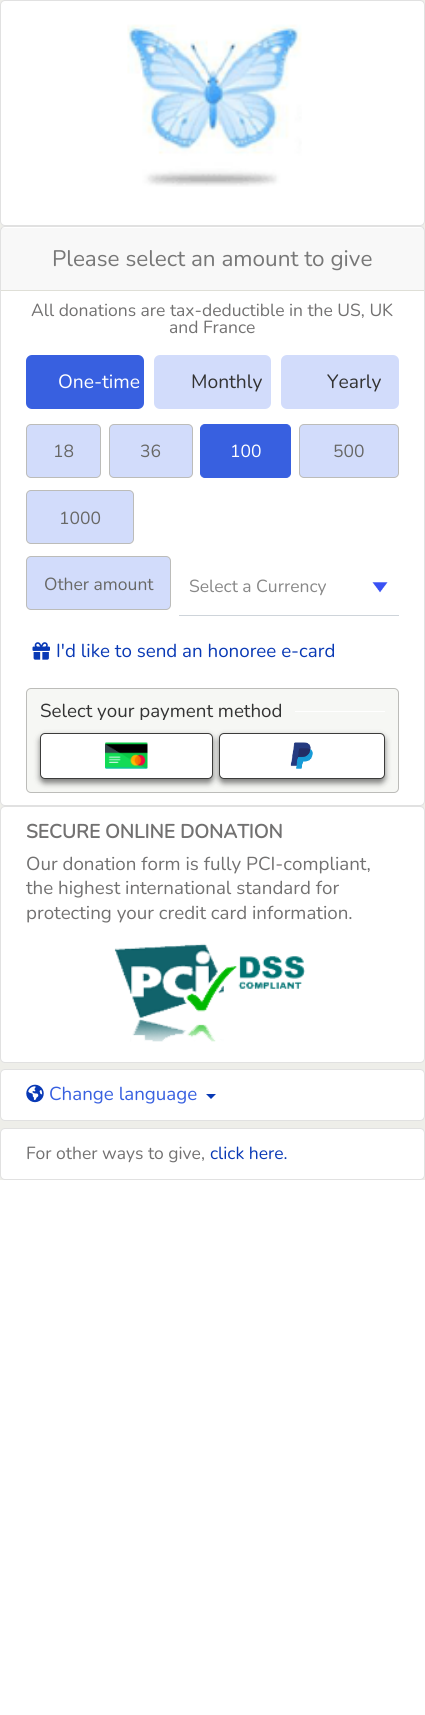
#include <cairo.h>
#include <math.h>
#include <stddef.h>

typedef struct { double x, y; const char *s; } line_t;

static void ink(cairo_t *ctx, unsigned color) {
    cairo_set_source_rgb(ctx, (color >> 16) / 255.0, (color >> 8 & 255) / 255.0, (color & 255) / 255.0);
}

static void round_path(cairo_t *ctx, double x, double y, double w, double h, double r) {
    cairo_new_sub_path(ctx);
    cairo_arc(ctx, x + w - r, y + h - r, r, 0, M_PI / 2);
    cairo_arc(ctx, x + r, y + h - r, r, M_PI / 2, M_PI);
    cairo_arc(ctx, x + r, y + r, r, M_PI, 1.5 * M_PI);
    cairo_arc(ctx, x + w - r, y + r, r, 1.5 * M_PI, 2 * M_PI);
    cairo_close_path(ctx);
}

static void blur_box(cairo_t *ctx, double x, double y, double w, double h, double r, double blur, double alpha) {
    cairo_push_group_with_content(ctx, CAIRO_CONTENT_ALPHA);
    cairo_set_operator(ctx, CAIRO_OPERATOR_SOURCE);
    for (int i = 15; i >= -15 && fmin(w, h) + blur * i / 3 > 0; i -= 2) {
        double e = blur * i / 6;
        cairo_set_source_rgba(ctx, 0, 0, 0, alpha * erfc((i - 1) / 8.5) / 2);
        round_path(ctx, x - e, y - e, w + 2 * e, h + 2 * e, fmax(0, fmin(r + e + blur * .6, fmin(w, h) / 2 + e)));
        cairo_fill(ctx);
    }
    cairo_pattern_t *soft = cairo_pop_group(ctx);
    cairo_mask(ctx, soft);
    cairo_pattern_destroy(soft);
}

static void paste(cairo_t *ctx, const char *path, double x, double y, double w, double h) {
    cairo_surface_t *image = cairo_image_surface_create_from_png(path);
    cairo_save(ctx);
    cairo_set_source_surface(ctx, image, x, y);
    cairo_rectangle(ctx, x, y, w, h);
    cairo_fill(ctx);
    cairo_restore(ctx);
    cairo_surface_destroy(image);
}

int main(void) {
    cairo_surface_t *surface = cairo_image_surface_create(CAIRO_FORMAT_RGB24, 425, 1715);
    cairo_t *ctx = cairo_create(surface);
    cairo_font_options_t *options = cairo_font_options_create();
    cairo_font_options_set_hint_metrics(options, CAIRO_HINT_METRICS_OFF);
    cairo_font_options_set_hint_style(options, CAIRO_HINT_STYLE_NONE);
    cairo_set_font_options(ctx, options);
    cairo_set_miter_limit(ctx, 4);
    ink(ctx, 0xFFFFFF);
    cairo_paint(ctx);
    ink(ctx, 0xEEEEE9);
    cairo_rectangle(ctx, 0, 0, 425, 1180);
    cairo_fill(ctx);
    ink(ctx, 0xFFFFFF);
    round_path(ctx, 0, 0, 425, 226, 5);
    cairo_fill(ctx);
    round_path(ctx, 0.5, 0.5, 424, 225, 4.5);
    cairo_set_source_rgba(ctx, 0, 0, 0, 0.12);
    cairo_set_line_width(ctx, 1);
    cairo_stroke(ctx);
    paste(ctx, "media/1.png", 127, 24, 175, 163);
    ink(ctx, 0xFFFFFF);
    round_path(ctx, 0, 226, 425, 580, 5);
    cairo_fill(ctx);
    round_path(ctx, 0.5, 226.5, 424, 579, 4.5);
    cairo_set_source_rgba(ctx, 0, 0, 0, 0.12);
    cairo_stroke(ctx);
    cairo_set_source_rgba(ctx, 0, 0, 0, 0.03);
    cairo_rectangle(ctx, 1, 228, 423, 62);
    cairo_fill(ctx);
    ink(ctx, 0xDFDFD7);
    cairo_rectangle(ctx, 1, 290, 423, 1);
    cairo_fill(ctx);
    cairo_select_font_face(ctx, "Nunito ExtraLight", CAIRO_FONT_SLANT_NORMAL, CAIRO_FONT_WEIGHT_NORMAL);
    cairo_set_font_size(ctx, 22.5);
    ink(ctx, 0x777777);
    cairo_move_to(ctx, 52, 266);
    cairo_show_text(ctx, "Please select an amount to give");
    cairo_set_font_size(ctx, 17.5);
    ink(ctx, 0x727171);
    cairo_move_to(ctx, 31, 316);
    cairo_show_text(ctx, "All donations are tax-deductible in the US, UK");
    cairo_move_to(ctx, 169, 333);
    cairo_show_text(ctx, "and France");
    ink(ctx, 0x3860E0);
    round_path(ctx, 26, 355, 118, 54, 6);
    cairo_fill(ctx);
    cairo_set_font_size(ctx, 19.25);
    ink(ctx, 0xFFFFFF);
    cairo_move_to(ctx, 58, 388);
    cairo_show_text(ctx, "One-time");
    ink(ctx, 0xD2DCFB);
    round_path(ctx, 154, 355, 117, 54, 6);
    cairo_fill(ctx);
    ink(ctx, 0x333333);
    cairo_move_to(ctx, 191, 388);
    cairo_show_text(ctx, "Monthly");
    ink(ctx, 0xD2DCFB);
    round_path(ctx, 281, 355, 118, 54, 6);
    cairo_fill(ctx);
    ink(ctx, 0x333333);
    cairo_move_to(ctx, 327, 388);
    cairo_show_text(ctx, "Yearly");
    ink(ctx, 0xD2DCFB);
    round_path(ctx, 26.5, 424.5, 74, 53, 4.5);
    cairo_fill_preserve(ctx);
    ink(ctx, 0xBCBCB9);
    cairo_stroke(ctx);
    cairo_set_font_size(ctx, 17.5);
    ink(ctx, 0x686866);
    cairo_move_to(ctx, 53, 457);
    cairo_show_text(ctx, "18");
    ink(ctx, 0xD2DCFB);
    round_path(ctx, 109.5, 424.5, 83, 53, 4.5);
    cairo_fill_preserve(ctx);
    ink(ctx, 0xBCBCB9);
    cairo_stroke(ctx);
    ink(ctx, 0x686866);
    cairo_move_to(ctx, 140, 457);
    cairo_show_text(ctx, "36");
    ink(ctx, 0x3860E0);
    round_path(ctx, 200.5, 424.5, 90, 53, 4.5);
    cairo_fill_preserve(ctx);
    cairo_stroke(ctx);
    ink(ctx, 0xFFFFFF);
    cairo_move_to(ctx, 230, 457);
    cairo_show_text(ctx, "100");
    ink(ctx, 0xD2DCFB);
    round_path(ctx, 299.5, 424.5, 99, 53, 4.5);
    cairo_fill_preserve(ctx);
    ink(ctx, 0xBCBCB9);
    cairo_stroke(ctx);
    ink(ctx, 0x686866);
    cairo_move_to(ctx, 333, 457);
    cairo_show_text(ctx, "500");
    ink(ctx, 0xD2DCFB);
    round_path(ctx, 26.5, 490.5, 107, 53, 4.5);
    cairo_fill_preserve(ctx);
    ink(ctx, 0xBCBCB9);
    cairo_stroke(ctx);
    ink(ctx, 0x686866);
    cairo_move_to(ctx, 59, 524);
    cairo_show_text(ctx, "1000");
    ink(ctx, 0xD2DCFB);
    round_path(ctx, 26.5, 556.5, 144, 53, 4.5);
    cairo_fill_preserve(ctx);
    ink(ctx, 0xBCBCB9);
    cairo_stroke(ctx);
    ink(ctx, 0x686866);
    cairo_move_to(ctx, 44, 590);
    cairo_show_text(ctx, "Other amount");
    paste(ctx, "media/2.png", 372, 582, 16, 11);
    ink(ctx, 0xCED4DA);
    cairo_rectangle(ctx, 179, 615, 220, 1);
    cairo_fill(ctx);
    ink(ctx, 0x888888);
    cairo_move_to(ctx, 189, 592);
    cairo_show_text(ctx, "Select a Currency");
    paste(ctx, "media/3.png", 32, 642, 18, 18);
    cairo_set_font_size(ctx, 18.75);
    ink(ctx, 0x0939B5);
    cairo_move_to(ctx, 56, 657);
    cairo_show_text(ctx, "I'd like to send an honoree e-card");
    ink(ctx, 0xF6F7F4);
    round_path(ctx, 26.5, 688.5, 372, 104, 4.5);
    cairo_fill_preserve(ctx);
    ink(ctx, 0xBCBCB9);
    cairo_stroke(ctx);
    cairo_save(ctx);
    cairo_rectangle(ctx, 40, 701, 345, 19);
    cairo_clip(ctx);
    ink(ctx, 0x333333);
    cairo_move_to(ctx, 40, 717);
    cairo_show_text(ctx, "Select your payment method");
    cairo_restore(ctx);
    ink(ctx, 0xFFFFFF);
    cairo_rectangle(ctx, 295, 711, 90, 1);
    cairo_fill(ctx);
    ink(ctx, 0x000000);
    blur_box(ctx, 40, 736, 173, 47, 5, 3, 0.5);
    ink(ctx, 0xFFFFFF);
    round_path(ctx, 40.5, 733.5, 172, 45, 4.5);
    cairo_fill_preserve(ctx);
    ink(ctx, 0x3C3C3B);
    cairo_stroke(ctx);
    paste(ctx, "media/4.png", 105, 742, 43, 27);
    ink(ctx, 0x000000);
    blur_box(ctx, 219, 736, 166, 47, 5, 3, 0.5);
    ink(ctx, 0xFFFFFF);
    round_path(ctx, 219.5, 733.5, 165, 45, 4.5);
    cairo_fill_preserve(ctx);
    ink(ctx, 0x3C3C3B);
    cairo_stroke(ctx);
    paste(ctx, "media/5.png", 290, 742, 23, 27);
    ink(ctx, 0xFFFFFF);
    round_path(ctx, 0, 806, 425, 257, 5);
    cairo_fill(ctx);
    round_path(ctx, 0.5, 806.5, 424, 256, 4.5);
    cairo_set_source_rgba(ctx, 0, 0, 0, 0.12);
    cairo_stroke(ctx);
    cairo_select_font_face(ctx, "Nunito", CAIRO_FONT_SLANT_NORMAL, CAIRO_FONT_WEIGHT_BOLD);
    cairo_set_font_size(ctx, 19.25);
    ink(ctx, 0x727171);
    cairo_move_to(ctx, 26, 838);
    cairo_show_text(ctx, "SECURE ONLINE DONATION");
    cairo_select_font_face(ctx, "Nunito ExtraLight", CAIRO_FONT_SLANT_NORMAL, CAIRO_FONT_WEIGHT_NORMAL);
    cairo_set_font_size(ctx, 18.75);
    {
        static const line_t items[] = {
            {26, 870, "Our donation form is fully PCI-compliant,"},
            {26, 894, "the highest international standard for"},
            {26, 919, "protecting your credit card information."},
        };
        for (size_t i = 0; i < sizeof items / sizeof *items; i++) {
            cairo_move_to(ctx, items[i].x, items[i].y);
            cairo_show_text(ctx, items[i].s);
        }
    }
    paste(ctx, "media/6.png", 114, 943, 192, 99);
    ink(ctx, 0xFFFFFF);
    round_path(ctx, 0, 1069, 425, 52, 5);
    cairo_fill(ctx);
    round_path(ctx, 0.5, 1069.5, 424, 51, 4.5);
    cairo_set_source_rgba(ctx, 0, 0, 0, 0.12);
    cairo_stroke(ctx);
    paste(ctx, "media/7.png", 26, 1084, 18, 19);
    ink(ctx, 0x3860E0);
    cairo_move_to(ctx, 49, 1100);
    cairo_show_text(ctx, "Change language");
    ink(ctx, 0x0939B5);
    cairo_new_path(ctx);
    cairo_move_to(ctx, 206, 1094);
    cairo_line_to(ctx, 216, 1094);
    cairo_line_to(ctx, 211, 1099);
    cairo_close_path(ctx);
    cairo_fill(ctx);
    ink(ctx, 0xFFFFFF);
    round_path(ctx, 0, 1128, 425, 52, 5);
    cairo_fill(ctx);
    round_path(ctx, 0.5, 1128.5, 424, 51, 4.5);
    cairo_set_source_rgba(ctx, 0, 0, 0, 0.12);
    cairo_stroke(ctx);
    cairo_set_font_size(ctx, 17.5);
    ink(ctx, 0x727171);
    cairo_move_to(ctx, 26, 1159);
    cairo_show_text(ctx, "For other ways to give,");
    ink(ctx, 0x0939B5);
    cairo_move_to(ctx, 210, 1159);
    cairo_show_text(ctx, "click here.");
    cairo_surface_write_to_png(surface, "image.png");
    cairo_font_options_destroy(options);
    cairo_destroy(ctx);
    cairo_surface_destroy(surface);
    return 0;
}
